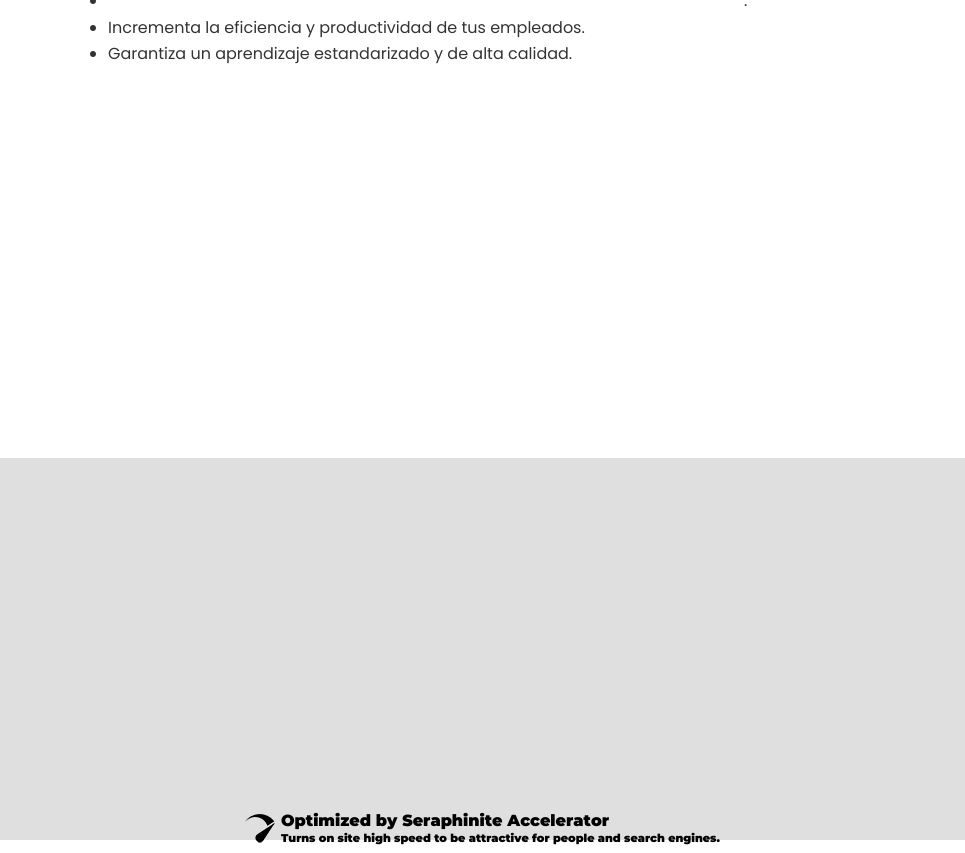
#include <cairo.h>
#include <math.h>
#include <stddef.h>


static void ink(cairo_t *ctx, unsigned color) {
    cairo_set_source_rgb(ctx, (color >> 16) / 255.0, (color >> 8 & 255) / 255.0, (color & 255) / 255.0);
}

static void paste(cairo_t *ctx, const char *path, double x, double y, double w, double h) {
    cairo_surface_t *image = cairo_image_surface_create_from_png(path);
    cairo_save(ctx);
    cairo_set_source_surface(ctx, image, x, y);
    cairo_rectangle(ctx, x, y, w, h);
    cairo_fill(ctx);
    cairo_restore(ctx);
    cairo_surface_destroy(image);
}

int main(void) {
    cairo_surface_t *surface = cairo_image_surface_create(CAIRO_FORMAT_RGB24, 965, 853);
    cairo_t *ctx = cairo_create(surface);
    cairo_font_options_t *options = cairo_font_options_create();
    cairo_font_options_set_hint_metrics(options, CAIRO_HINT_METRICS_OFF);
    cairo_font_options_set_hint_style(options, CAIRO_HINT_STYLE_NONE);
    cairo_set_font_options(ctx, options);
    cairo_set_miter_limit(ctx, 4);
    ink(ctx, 0xFFFFFF);
    cairo_paint(ctx);
    ink(ctx, 0x333333);
    cairo_arc(ctx, 93, 1, 3, 0, 2 * M_PI);
    cairo_fill(ctx);
    cairo_select_font_face(ctx, "Poppins", CAIRO_FONT_SLANT_NORMAL, CAIRO_FONT_WEIGHT_NORMAL);
    cairo_set_font_size(ctx, 16);
    cairo_move_to(ctx, 744, 6);
    cairo_show_text(ctx, ".");
    cairo_new_path(ctx);
    cairo_arc(ctx, 93, 28, 3, 0, 2 * M_PI);
    cairo_fill(ctx);
    cairo_move_to(ctx, 108, 33);
    cairo_show_text(ctx, "Incrementa la eficiencia y productividad de tus empleados.");
    cairo_new_path(ctx);
    cairo_arc(ctx, 93, 54, 3, 0, 2 * M_PI);
    cairo_fill(ctx);
    cairo_move_to(ctx, 108, 59);
    cairo_show_text(ctx, "Garantiza un aprendizaje estandarizado y de alta calidad.");
    ink(ctx, 0xDFDFDF);
    cairo_rectangle(ctx, 0, 458, 965, 382);
    cairo_fill(ctx);
    paste(ctx, "media/1.png", 245, 814, 30, 29);
    cairo_select_font_face(ctx, "Montserrat Black", CAIRO_FONT_SLANT_NORMAL, CAIRO_FONT_WEIGHT_NORMAL);
    ink(ctx, 0x000000);
    cairo_move_to(ctx, 281, 826);
    cairo_show_text(ctx, "Optimized by Seraphinite Accelerator");
    cairo_set_font_size(ctx, 11.2);
    cairo_move_to(ctx, 281, 842);
    cairo_show_text(ctx, "Turns on site high speed to be attractive for people and search engines.");
    cairo_surface_write_to_png(surface, "image.png");
    cairo_font_options_destroy(options);
    cairo_destroy(ctx);
    cairo_surface_destroy(surface);
    return 0;
}
